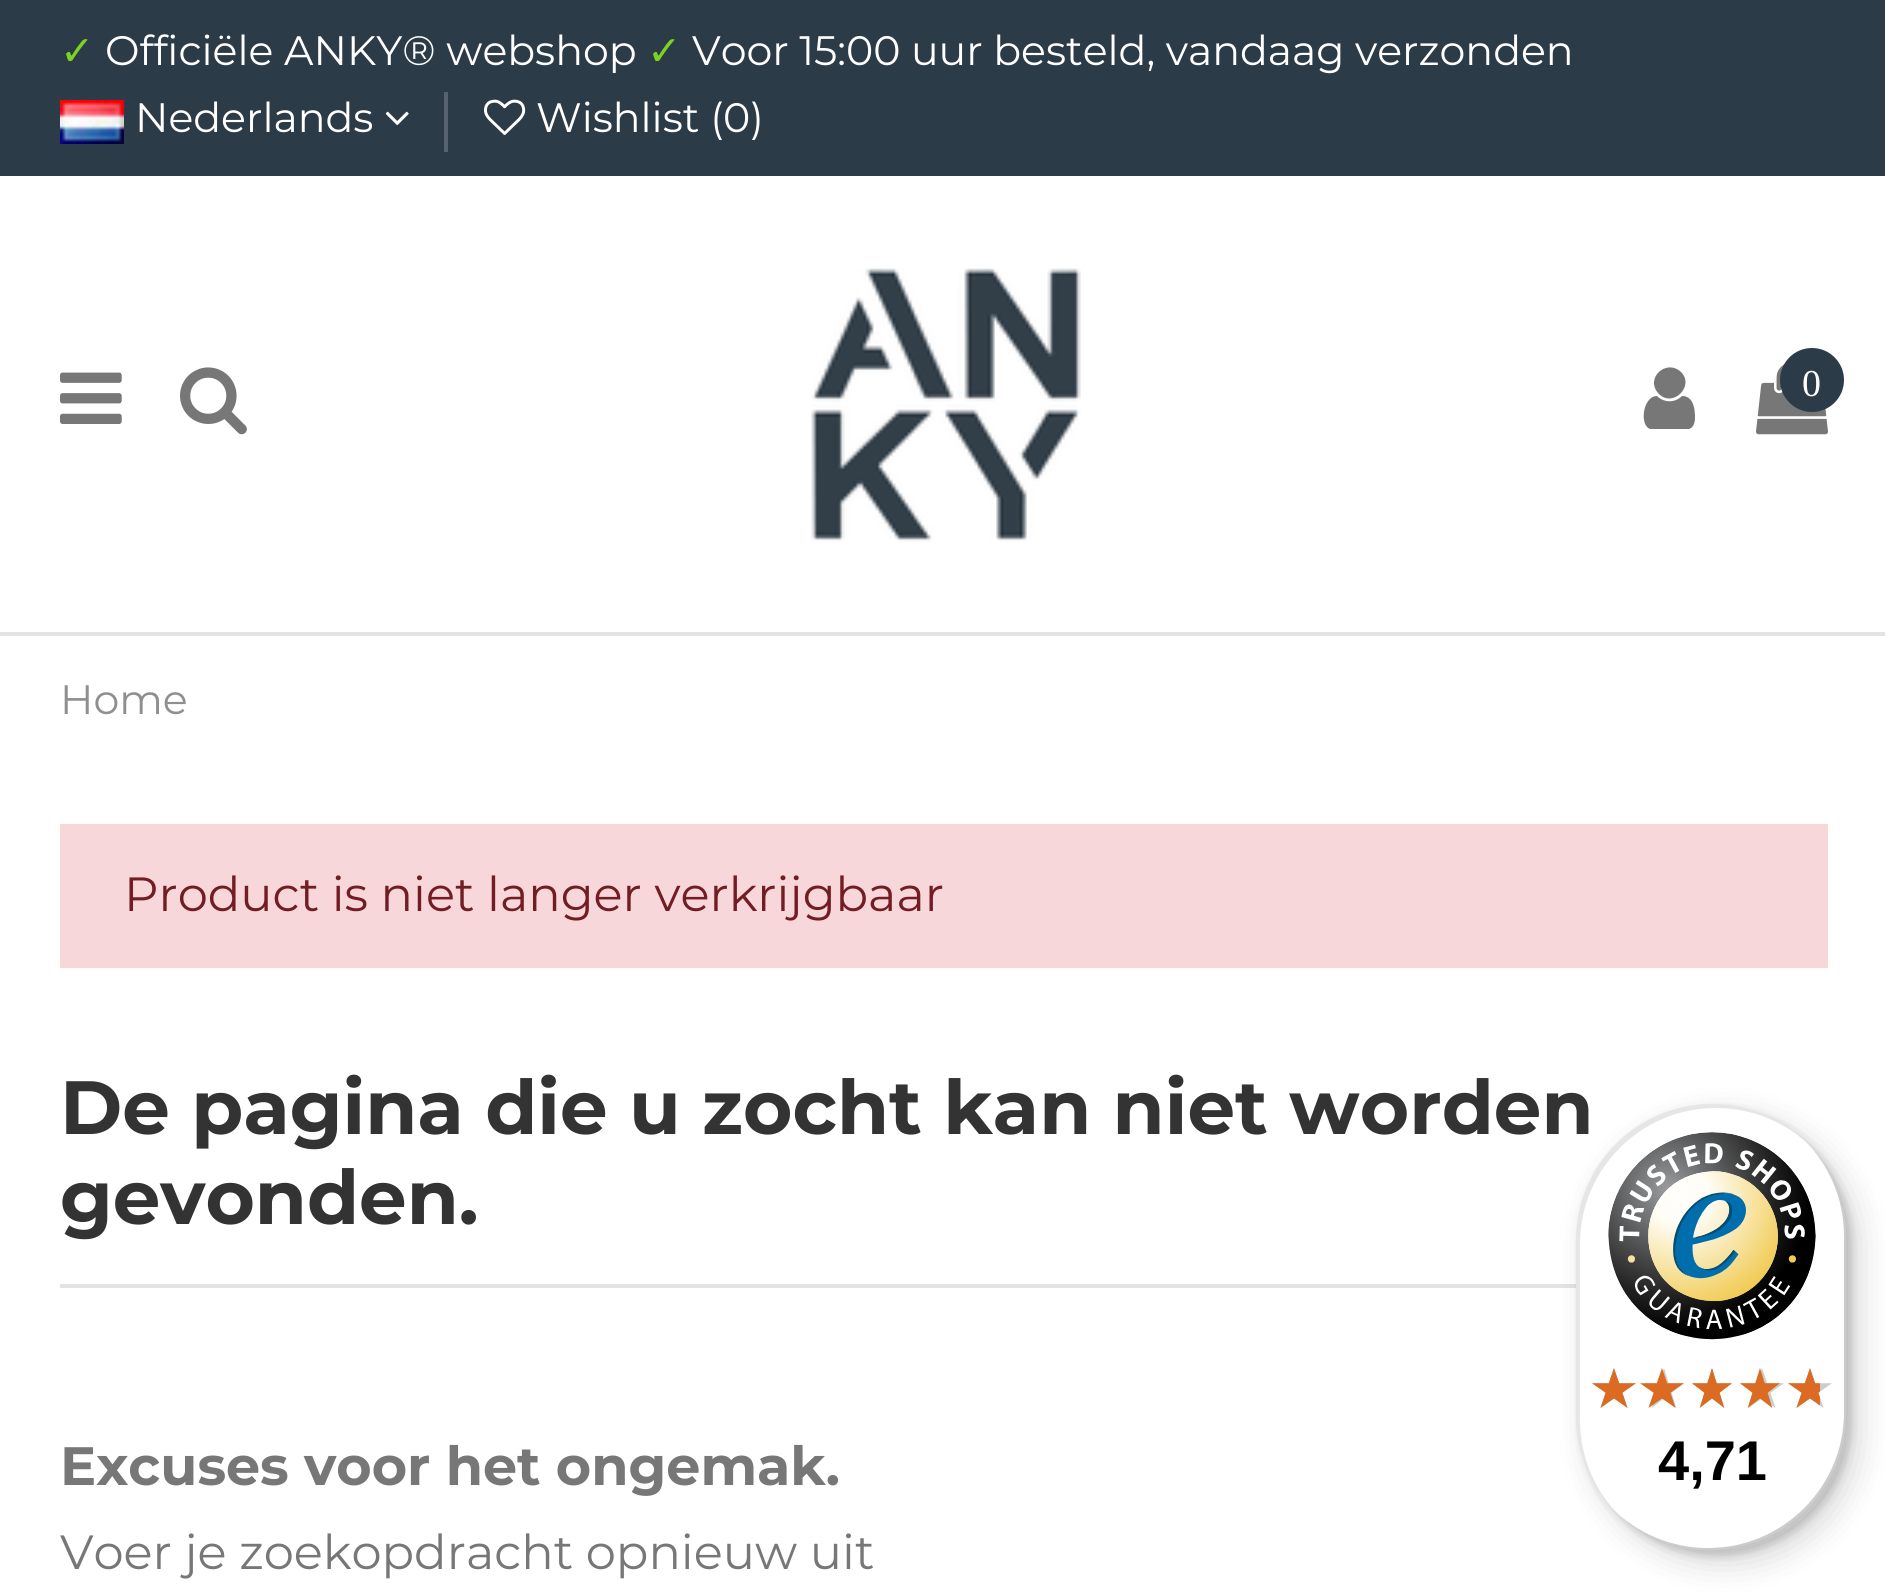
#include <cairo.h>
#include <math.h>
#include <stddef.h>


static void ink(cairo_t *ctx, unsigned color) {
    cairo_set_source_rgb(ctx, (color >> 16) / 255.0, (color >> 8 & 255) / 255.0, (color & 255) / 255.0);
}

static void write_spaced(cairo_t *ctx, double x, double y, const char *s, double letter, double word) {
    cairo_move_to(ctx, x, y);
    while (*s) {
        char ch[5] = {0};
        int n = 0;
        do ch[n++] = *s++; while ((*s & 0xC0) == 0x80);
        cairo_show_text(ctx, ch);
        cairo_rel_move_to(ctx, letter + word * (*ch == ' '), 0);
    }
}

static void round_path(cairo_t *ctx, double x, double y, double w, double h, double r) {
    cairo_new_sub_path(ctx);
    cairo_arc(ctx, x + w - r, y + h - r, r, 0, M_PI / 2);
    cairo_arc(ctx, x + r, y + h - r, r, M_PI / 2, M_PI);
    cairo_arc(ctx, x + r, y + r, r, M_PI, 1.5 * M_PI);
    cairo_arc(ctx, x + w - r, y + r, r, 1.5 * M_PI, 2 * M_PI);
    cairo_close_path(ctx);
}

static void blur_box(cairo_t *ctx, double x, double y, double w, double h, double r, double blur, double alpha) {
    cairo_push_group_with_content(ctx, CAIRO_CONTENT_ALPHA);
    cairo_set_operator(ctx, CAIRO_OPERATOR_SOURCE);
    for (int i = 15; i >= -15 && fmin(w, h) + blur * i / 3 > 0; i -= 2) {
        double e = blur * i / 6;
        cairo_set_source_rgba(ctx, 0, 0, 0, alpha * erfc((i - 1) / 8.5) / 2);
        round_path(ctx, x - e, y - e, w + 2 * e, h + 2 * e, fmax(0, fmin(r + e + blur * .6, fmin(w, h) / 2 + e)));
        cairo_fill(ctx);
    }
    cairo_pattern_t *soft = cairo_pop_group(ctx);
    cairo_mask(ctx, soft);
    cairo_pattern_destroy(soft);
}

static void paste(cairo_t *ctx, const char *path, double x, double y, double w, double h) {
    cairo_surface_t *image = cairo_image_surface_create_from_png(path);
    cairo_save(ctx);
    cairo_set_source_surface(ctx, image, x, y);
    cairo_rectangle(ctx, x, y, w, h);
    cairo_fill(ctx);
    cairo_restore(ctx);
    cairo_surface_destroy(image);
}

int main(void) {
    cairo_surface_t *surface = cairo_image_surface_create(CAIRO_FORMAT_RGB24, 1885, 1592);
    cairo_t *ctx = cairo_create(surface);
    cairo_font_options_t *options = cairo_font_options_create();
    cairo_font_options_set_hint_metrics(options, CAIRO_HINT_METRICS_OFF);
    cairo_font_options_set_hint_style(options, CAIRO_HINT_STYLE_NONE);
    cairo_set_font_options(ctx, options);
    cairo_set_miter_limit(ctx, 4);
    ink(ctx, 0xFFFFFF);
    cairo_paint(ctx);
    ink(ctx, 0x2C3B48);
    cairo_rectangle(ctx, 0, 0, 1885, 176);
    cairo_fill(ctx);
    cairo_select_font_face(ctx, "DejaVu Sans", CAIRO_FONT_SLANT_NORMAL, CAIRO_FONT_WEIGHT_NORMAL);
    cairo_set_font_size(ctx, 41.1);
    ink(ctx, 0x7CD320);
    cairo_move_to(ctx, 60, 65);
    cairo_show_text(ctx, "✓");
    cairo_select_font_face(ctx, "Montserrat", CAIRO_FONT_SLANT_NORMAL, CAIRO_FONT_WEIGHT_NORMAL);
    ink(ctx, 0xFFFFFF);
    cairo_move_to(ctx, 105, 65);
    cairo_show_text(ctx, "Officiële ANKY® webshop");
    cairo_select_font_face(ctx, "DejaVu Sans", CAIRO_FONT_SLANT_NORMAL, CAIRO_FONT_WEIGHT_NORMAL);
    ink(ctx, 0x7CD320);
    cairo_move_to(ctx, 647, 65);
    cairo_show_text(ctx, "✓");
    cairo_select_font_face(ctx, "Montserrat", CAIRO_FONT_SLANT_NORMAL, CAIRO_FONT_WEIGHT_NORMAL);
    ink(ctx, 0xFFFFFF);
    write_spaced(ctx, 692, 65, "Voor 15:00 uur besteld, vandaag verzonden", 0, -0.25);
    paste(ctx, "media/1.png", 60, 100, 64, 44);
    cairo_move_to(ctx, 135, 132);
    cairo_show_text(ctx, "Nederlands");
    paste(ctx, "media/2.png", 385, 111, 24, 14);
    ink(ctx, 0x56626D);
    cairo_rectangle(ctx, 444, 92, 4, 60);
    cairo_fill(ctx);
    paste(ctx, "media/3.png", 484, 99, 42, 36);
    ink(ctx, 0xFFFFFF);
    cairo_move_to(ctx, 536, 132);
    cairo_show_text(ctx, "Wishlist (");
    cairo_move_to(ctx, 723, 132);
    cairo_show_text(ctx, "0)");
    ink(ctx, 0xE3E3E3);
    cairo_rectangle(ctx, 0, 632, 1885, 4);
    cairo_fill(ctx);
    paste(ctx, "media/4.png", 60, 372, 62, 52);
    paste(ctx, "media/5.png", 180, 367, 67, 68);
    paste(ctx, "media/6.png", 811, 268, 270, 274);
    ink(ctx, 0x777777);
    cairo_new_path(ctx);
    cairo_move_to(ctx, 1695, 418);
    cairo_curve_to(ctx, 1695, 423, 1693, 428, 1689, 429);
    cairo_line_to(ctx, 1658, 429);
    cairo_line_to(ctx, 1650, 429);
    cairo_curve_to(ctx, 1639, 425, 1643, 396, 1657, 396);
    cairo_curve_to(ctx, 1664, 403, 1675, 403, 1682, 396);
    cairo_curve_to(ctx, 1694, 396, 1695, 410, 1695, 418);
    cairo_close_path(ctx);
    cairo_move_to(ctx, 1681, 372);
    cairo_curve_to(ctx, 1695, 386, 1673, 408, 1659, 394);
    cairo_curve_to(ctx, 1644, 379, 1666, 358, 1681, 372);
    cairo_close_path(ctx);
    cairo_fill(ctx);
    paste(ctx, "media/7.png", 1756, 364, 72, 71);
    ink(ctx, 0x2C3B48);
    cairo_arc(ctx, 1812, 380, 32, 0, 2 * M_PI);
    cairo_fill(ctx);
    cairo_select_font_face(ctx, "Liberation Serif", CAIRO_FONT_SLANT_NORMAL, CAIRO_FONT_WEIGHT_NORMAL);
    cairo_set_font_size(ctx, 38);
    ink(ctx, 0xFFFFFF);
    cairo_move_to(ctx, 1802, 396);
    cairo_show_text(ctx, "0");
    cairo_select_font_face(ctx, "Montserrat", CAIRO_FONT_SLANT_NORMAL, CAIRO_FONT_WEIGHT_NORMAL);
    cairo_set_font_size(ctx, 41.1);
    ink(ctx, 0x8F8F8F);
    cairo_move_to(ctx, 60, 714);
    cairo_show_text(ctx, "Home");
    ink(ctx, 0xF8D7DA);
    cairo_rectangle(ctx, 60, 824, 1768, 144);
    cairo_fill(ctx);
    cairo_set_font_size(ctx, 48);
    ink(ctx, 0x721C24);
    cairo_move_to(ctx, 124, 911);
    cairo_show_text(ctx, "Product is niet langer verkrijgbaar");
    ink(ctx, 0xE3E3E3);
    cairo_rectangle(ctx, 60, 1284, 1516, 4);
    cairo_fill(ctx);
    cairo_select_font_face(ctx, "Montserrat", CAIRO_FONT_SLANT_NORMAL, CAIRO_FONT_WEIGHT_BOLD);
    cairo_set_font_size(ctx, 75.4);
    ink(ctx, 0x333333);
    cairo_move_to(ctx, 60, 1134);
    cairo_show_text(ctx, "De pagina die u zocht kan niet worden");
    cairo_move_to(ctx, 60, 1224);
    cairo_show_text(ctx, "gevonden.");
    cairo_set_font_size(ctx, 54);
    ink(ctx, 0x777777);
    cairo_move_to(ctx, 60, 1485);
    cairo_show_text(ctx, "Excuses voor het ongemak.");
    cairo_select_font_face(ctx, "Montserrat", CAIRO_FONT_SLANT_NORMAL, CAIRO_FONT_WEIGHT_NORMAL);
    cairo_set_font_size(ctx, 48);
    cairo_move_to(ctx, 60, 1569);
    cairo_show_text(ctx, "Voer je zoekopdracht opnieuw uit");
    ink(ctx, 0x000000);
    blur_box(ctx, 1588, 1116, 272, 448, 136, 16, 0.15);
    blur_box(ctx, 1580, 1108, 272, 448, 136, 4, 0.15);
    ink(ctx, 0xFFFFFF);
    round_path(ctx, 1576, 1104, 272, 448, 136);
    cairo_fill(ctx);
    cairo_set_source_rgba(ctx, 0, 0, 0, 0.1);
    cairo_new_path(ctx);
    cairo_move_to(ctx, 1716, 1108);
    cairo_curve_to(ctx, 1753, 1108, 1787, 1123, 1811, 1147);
    cairo_curve_to(ctx, 1786, 1120, 1751, 1104, 1712, 1104);
    cairo_curve_to(ctx, 1637, 1104, 1576, 1165, 1576, 1240);
    cairo_line_to(ctx, 1576, 1416);
    cairo_curve_to(ctx, 1576, 1455, 1592, 1490, 1619, 1515);
    cairo_curve_to(ctx, 1595, 1491, 1580, 1457, 1580, 1420);
    cairo_line_to(ctx, 1580, 1244);
    cairo_curve_to(ctx, 1580, 1169, 1641, 1108, 1716, 1108);
    cairo_close_path(ctx);
    cairo_fill(ctx);
    cairo_set_source_rgba(ctx, 0, 0, 0, 0.2);
    cairo_new_path(ctx);
    cairo_move_to(ctx, 1613, 1509);
    cairo_curve_to(ctx, 1638, 1536, 1673, 1552, 1712, 1552);
    cairo_curve_to(ctx, 1787, 1552, 1848, 1491, 1848, 1416);
    cairo_line_to(ctx, 1848, 1240);
    cairo_curve_to(ctx, 1848, 1201, 1832, 1166, 1805, 1141);
    cairo_curve_to(ctx, 1829, 1165, 1844, 1199, 1844, 1236);
    cairo_line_to(ctx, 1844, 1412);
    cairo_curve_to(ctx, 1844, 1487, 1783, 1548, 1708, 1548);
    cairo_curve_to(ctx, 1671, 1548, 1637, 1533, 1613, 1509);
    cairo_close_path(ctx);
    cairo_fill(ctx);
    cairo_set_source_rgba(ctx, 0.196, 0.196, 0.196, 0.2);
    cairo_new_path(ctx);
    cairo_move_to(ctx, 1622, 1518);
    cairo_curve_to(ctx, 1646, 1539, 1678, 1552, 1712, 1552);
    cairo_curve_to(ctx, 1787, 1552, 1848, 1491, 1848, 1416);
    cairo_line_to(ctx, 1848, 1240);
    cairo_curve_to(ctx, 1848, 1206, 1835, 1174, 1814, 1150);
    cairo_curve_to(ctx, 1834, 1174, 1846, 1204, 1846, 1238);
    cairo_line_to(ctx, 1846, 1414);
    cairo_curve_to(ctx, 1846, 1489, 1785, 1550, 1710, 1550);
    cairo_curve_to(ctx, 1676, 1550, 1646, 1538, 1622, 1518);
    cairo_close_path(ctx);
    cairo_fill(ctx);
    cairo_set_source_rgba(ctx, 1, 1, 1, 0.3);
    cairo_new_path(ctx);
    cairo_move_to(ctx, 1613, 1509);
    cairo_curve_to(ctx, 1638, 1536, 1673, 1552, 1712, 1552);
    cairo_curve_to(ctx, 1787, 1552, 1848, 1491, 1848, 1416);
    cairo_line_to(ctx, 1848, 1240);
    cairo_curve_to(ctx, 1848, 1201, 1832, 1166, 1805, 1141);
    cairo_curve_to(ctx, 1830, 1166, 1846, 1200, 1846, 1238);
    cairo_line_to(ctx, 1846, 1414);
    cairo_curve_to(ctx, 1846, 1489, 1785, 1550, 1710, 1550);
    cairo_curve_to(ctx, 1672, 1550, 1638, 1534, 1613, 1509);
    cairo_close_path(ctx);
    cairo_fill(ctx);
    paste(ctx, "media/8.png", 1608, 1132, 208, 208);
    paste(ctx, "media/9.png", 1592, 1368, 44, 40);
    paste(ctx, "media/10.png", 1644, 1368, 40, 40);
    paste(ctx, "media/11.png", 1692, 1368, 40, 40);
    paste(ctx, "media/12.png", 1740, 1368, 44, 40);
    paste(ctx, "media/12.png", 1788, 1368, 44, 40);
    paste(ctx, "media/13.png", 1592, 1368, 44, 40);
    paste(ctx, "media/14.png", 1640, 1368, 44, 40);
    paste(ctx, "media/15.png", 1692, 1368, 40, 40);
    paste(ctx, "media/16.png", 1740, 1368, 40, 40);
    paste(ctx, "media/17.png", 1788, 1368, 32, 40);
    cairo_select_font_face(ctx, "Liberation Sans", CAIRO_FONT_SLANT_NORMAL, CAIRO_FONT_WEIGHT_BOLD);
    cairo_set_font_size(ctx, 56);
    ink(ctx, 0x000000);
    cairo_move_to(ctx, 1658, 1480);
    cairo_show_text(ctx, "4,71");
    cairo_surface_write_to_png(surface, "image.png");
    cairo_font_options_destroy(options);
    cairo_destroy(ctx);
    cairo_surface_destroy(surface);
    return 0;
}
